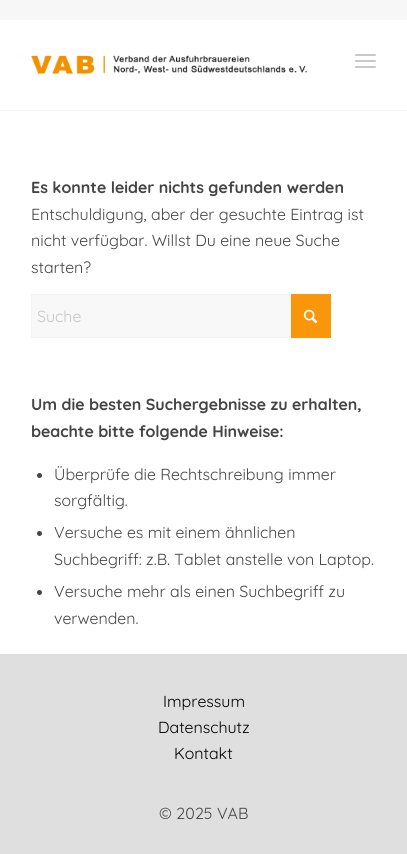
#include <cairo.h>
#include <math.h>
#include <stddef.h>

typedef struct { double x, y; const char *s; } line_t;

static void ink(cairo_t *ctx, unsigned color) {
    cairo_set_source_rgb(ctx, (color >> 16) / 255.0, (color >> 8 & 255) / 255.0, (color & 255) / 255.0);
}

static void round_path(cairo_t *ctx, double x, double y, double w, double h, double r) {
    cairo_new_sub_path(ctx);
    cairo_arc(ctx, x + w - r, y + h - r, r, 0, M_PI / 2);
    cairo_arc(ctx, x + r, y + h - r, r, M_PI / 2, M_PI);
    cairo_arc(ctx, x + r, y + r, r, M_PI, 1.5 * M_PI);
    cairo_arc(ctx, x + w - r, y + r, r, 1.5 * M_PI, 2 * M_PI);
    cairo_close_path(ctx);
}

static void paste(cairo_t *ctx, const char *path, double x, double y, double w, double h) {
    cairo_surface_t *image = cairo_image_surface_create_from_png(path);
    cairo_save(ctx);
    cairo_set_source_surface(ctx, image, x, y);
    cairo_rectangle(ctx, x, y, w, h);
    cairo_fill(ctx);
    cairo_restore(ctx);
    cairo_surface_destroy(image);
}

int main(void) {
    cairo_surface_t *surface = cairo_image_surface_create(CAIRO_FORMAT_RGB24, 407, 854);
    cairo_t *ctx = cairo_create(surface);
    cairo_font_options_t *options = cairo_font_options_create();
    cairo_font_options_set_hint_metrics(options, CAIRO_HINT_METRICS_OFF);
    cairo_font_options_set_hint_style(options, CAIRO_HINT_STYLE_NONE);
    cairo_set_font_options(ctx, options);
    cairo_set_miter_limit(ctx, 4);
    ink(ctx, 0xF7F7F7);
    cairo_paint(ctx);
    ink(ctx, 0xFFFFFF);
    cairo_rectangle(ctx, 0, 20, 407, 90);
    cairo_fill(ctx);
    paste(ctx, "media/1.png", 31, 55, 276, 20);
    ink(ctx, 0xC9C9C9);
    round_path(ctx, 355, 60, 21, 2, 1);
    cairo_fill(ctx);
    round_path(ctx, 355, 54, 21, 2, 1);
    cairo_fill(ctx);
    round_path(ctx, 355, 66, 21, 2, 1);
    cairo_fill(ctx);
    ink(ctx, 0xFFFFFF);
    cairo_rectangle(ctx, 0, 111, 407, 543);
    cairo_fill(ctx);
    ink(ctx, 0xF2F2F2);
    cairo_rectangle(ctx, 0, 110, 407, 1);
    cairo_fill(ctx);
    cairo_select_font_face(ctx, "Quicksand", CAIRO_FONT_SLANT_NORMAL, CAIRO_FONT_WEIGHT_BOLD);
    cairo_set_font_size(ctx, 16);
    ink(ctx, 0x454545);
    cairo_move_to(ctx, 31, 193);
    cairo_show_text(ctx, "Es konnte leider nichts gefunden werden");
    cairo_select_font_face(ctx, "Quicksand", CAIRO_FONT_SLANT_NORMAL, CAIRO_FONT_WEIGHT_NORMAL);
    {
        static const line_t items[] = {
            {31, 220, "Entschuldigung, aber der gesuchte Eintrag ist"},
            {31, 246, "nicht verfügbar. Willst Du eine neue Suche"},
            {31, 273, "starten?"},
        };
        for (size_t i = 0; i < sizeof items / sizeof *items; i++) {
            cairo_move_to(ctx, items[i].x, items[i].y);
            cairo_show_text(ctx, items[i].s);
        }
    }
    ink(ctx, 0xF8F8F8);
    cairo_rectangle(ctx, 32, 295, 259, 42);
    cairo_fill(ctx);
    cairo_rectangle(ctx, 31.5, 294.5, 299, 43);
    ink(ctx, 0xF2F2F2);
    cairo_set_line_width(ctx, 1);
    cairo_stroke(ctx);
    ink(ctx, 0xF9960C);
    cairo_rectangle(ctx, 291, 294, 40, 44);
    cairo_fill(ctx);
    ink(ctx, 0xC5C5C5);
    cairo_move_to(ctx, 37, 322);
    cairo_show_text(ctx, "Suche");
    paste(ctx, "media/2.png", 303, 309, 15, 15);
    cairo_select_font_face(ctx, "Quicksand", CAIRO_FONT_SLANT_NORMAL, CAIRO_FONT_WEIGHT_BOLD);
    ink(ctx, 0x454545);
    cairo_move_to(ctx, 31, 410);
    cairo_show_text(ctx, "Um die besten Suchergebnisse zu erhalten,");
    cairo_move_to(ctx, 31, 437);
    cairo_show_text(ctx, "beachte bitte folgende Hinweise:");
    cairo_new_path(ctx);
    cairo_arc(ctx, 39.5, 475.5, 2.5, 0, 2 * M_PI);
    cairo_fill(ctx);
    cairo_select_font_face(ctx, "Quicksand", CAIRO_FONT_SLANT_NORMAL, CAIRO_FONT_WEIGHT_NORMAL);
    cairo_move_to(ctx, 54, 480);
    cairo_show_text(ctx, "Überprüfe die Rechtschreibung immer");
    cairo_move_to(ctx, 54, 506);
    cairo_show_text(ctx, "sorgfältig.");
    cairo_new_path(ctx);
    cairo_arc(ctx, 39.5, 533.5, 2.5, 0, 2 * M_PI);
    cairo_fill(ctx);
    cairo_move_to(ctx, 54, 538);
    cairo_show_text(ctx, "Versuche es mit einem ähnlichen");
    cairo_move_to(ctx, 54, 565);
    cairo_show_text(ctx, "Suchbegriff: z.B. Tablet anstelle von Laptop.");
    cairo_new_path(ctx);
    cairo_arc(ctx, 39.5, 592.5, 2.5, 0, 2 * M_PI);
    cairo_fill(ctx);
    cairo_move_to(ctx, 54, 597);
    cairo_show_text(ctx, "Versuche mehr als einen Suchbegriff zu");
    cairo_move_to(ctx, 54, 624);
    cairo_show_text(ctx, "verwenden.");
    ink(ctx, 0xDFDFDF);
    cairo_rectangle(ctx, 0, 654, 407, 200);
    cairo_fill(ctx);
    ink(ctx, 0x000000);
    {
        static const line_t items[] = {
            {163, 707, "Impressum"},
            {158, 733, "Datenschutz"},
            {174, 759, "Kontakt"},
        };
        for (size_t i = 0; i < sizeof items / sizeof *items; i++) {
            cairo_move_to(ctx, items[i].x, items[i].y);
            cairo_show_text(ctx, items[i].s);
        }
    }
    ink(ctx, 0x454545);
    cairo_move_to(ctx, 159, 819);
    cairo_show_text(ctx, "© 2025 VAB");
    cairo_surface_write_to_png(surface, "image.png");
    cairo_font_options_destroy(options);
    cairo_destroy(ctx);
    cairo_surface_destroy(surface);
    return 0;
}
